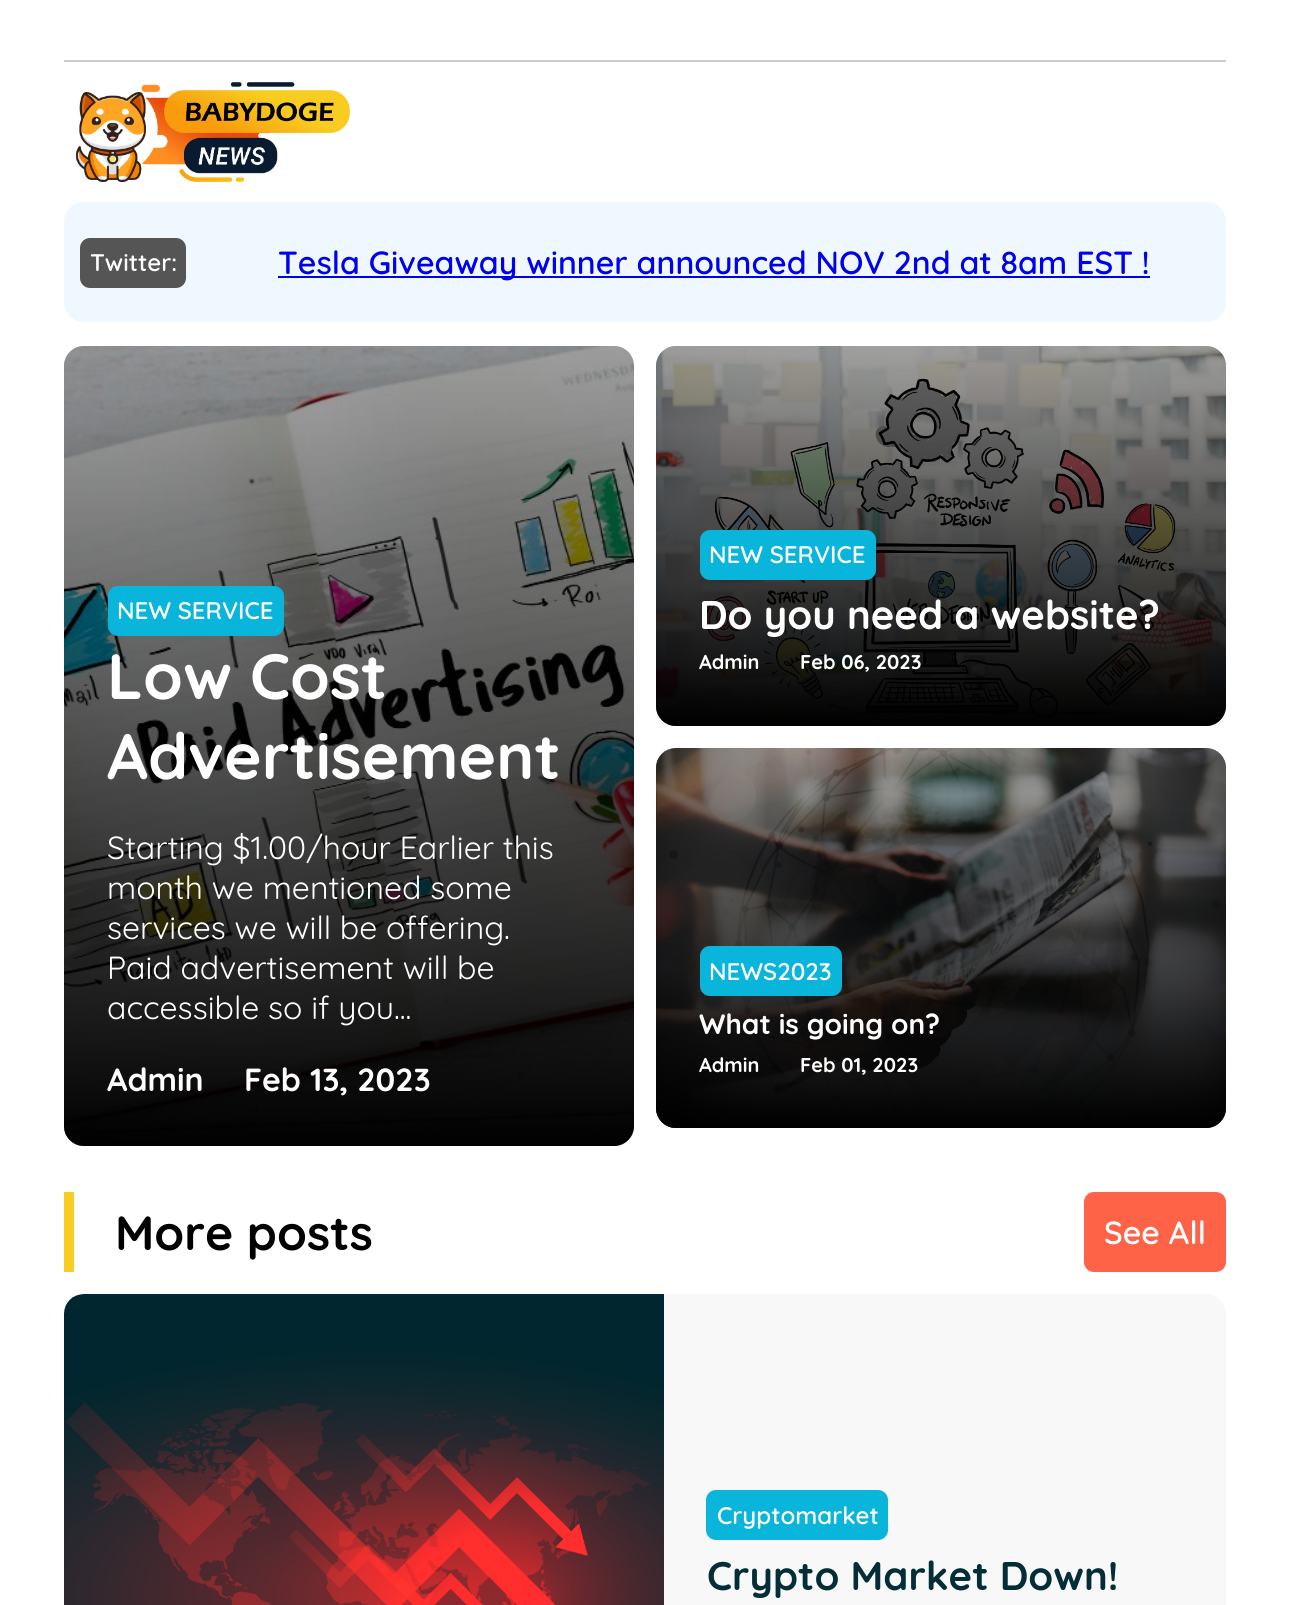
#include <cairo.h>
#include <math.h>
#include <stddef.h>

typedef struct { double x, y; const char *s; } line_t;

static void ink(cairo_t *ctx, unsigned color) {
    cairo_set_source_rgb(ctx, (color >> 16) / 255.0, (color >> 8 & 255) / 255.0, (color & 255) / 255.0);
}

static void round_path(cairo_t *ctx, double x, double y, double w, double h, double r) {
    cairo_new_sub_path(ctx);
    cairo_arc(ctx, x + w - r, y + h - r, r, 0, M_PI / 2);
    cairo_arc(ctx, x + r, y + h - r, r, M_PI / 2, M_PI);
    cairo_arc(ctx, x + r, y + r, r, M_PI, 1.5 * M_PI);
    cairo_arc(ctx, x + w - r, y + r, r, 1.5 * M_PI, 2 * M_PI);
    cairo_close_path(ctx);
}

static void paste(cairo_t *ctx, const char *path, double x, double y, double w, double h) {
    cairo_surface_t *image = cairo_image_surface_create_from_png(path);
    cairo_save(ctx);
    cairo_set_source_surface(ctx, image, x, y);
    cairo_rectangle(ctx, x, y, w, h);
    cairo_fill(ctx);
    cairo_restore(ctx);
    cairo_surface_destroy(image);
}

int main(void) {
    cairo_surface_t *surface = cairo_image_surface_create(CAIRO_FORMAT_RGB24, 1290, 1605);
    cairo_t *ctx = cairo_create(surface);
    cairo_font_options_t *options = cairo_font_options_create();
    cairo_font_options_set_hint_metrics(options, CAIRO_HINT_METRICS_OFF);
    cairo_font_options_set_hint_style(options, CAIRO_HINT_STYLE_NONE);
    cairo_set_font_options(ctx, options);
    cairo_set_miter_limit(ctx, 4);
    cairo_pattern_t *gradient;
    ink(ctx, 0xFFFFFF);
    cairo_paint(ctx);
    ink(ctx, 0xCCCCCC);
    cairo_rectangle(ctx, 64, 60, 1162, 2);
    cairo_fill(ctx);
    paste(ctx, "media/1.png", 64, 82, 286, 100);
    ink(ctx, 0xF0F8FF);
    round_path(ctx, 64, 202, 1162, 120, 20);
    cairo_fill(ctx);
    ink(ctx, 0x555555);
    round_path(ctx, 80, 238, 106, 50, 10);
    cairo_fill(ctx);
    cairo_select_font_face(ctx, "Quicksand SemiBold", CAIRO_FONT_SLANT_NORMAL, CAIRO_FONT_WEIGHT_NORMAL);
    cairo_set_font_size(ctx, 24);
    ink(ctx, 0xFFFFFF);
    cairo_move_to(ctx, 90, 271);
    cairo_show_text(ctx, "Twitter:");
    ink(ctx, 0x0000EE);
    cairo_rectangle(ctx, 278, 276, 872, 2);
    cairo_fill(ctx);
    cairo_set_font_size(ctx, 32);
    cairo_move_to(ctx, 278, 274);
    cairo_show_text(ctx, "Tesla Giveaway winner announced NOV 2nd at 8am EST !");
    ink(ctx, 0xCCCCCC);
    round_path(ctx, 64, 346, 570, 800, 20);
    cairo_fill(ctx);
    paste(ctx, "media/2.png", 64, 346, 570, 800);
    cairo_set_source_rgba(ctx, 0, 0, 0, 0.3);
    round_path(ctx, 64, 346, 570, 800, 20);
    cairo_fill(ctx);
    gradient = cairo_pattern_create_linear(349, 346, 349, 1150);
    cairo_pattern_add_color_stop_rgba(gradient, 0, 0, 0, 0, 0.06);
    cairo_pattern_add_color_stop_rgba(gradient, 1, 0, 0, 0, 1);
    cairo_set_source(ctx, gradient);
    cairo_pattern_destroy(gradient);
    round_path(ctx, 64, 346, 570, 800, 20);
    cairo_fill(ctx);
    ink(ctx, 0x0AB5DB);
    round_path(ctx, 108, 586, 176, 50, 10);
    cairo_fill(ctx);
    cairo_set_font_size(ctx, 24);
    ink(ctx, 0xFFFFFF);
    cairo_move_to(ctx, 117, 619);
    cairo_show_text(ctx, "NEW SERVICE");
    cairo_select_font_face(ctx, "Quicksand", CAIRO_FONT_SLANT_NORMAL, CAIRO_FONT_WEIGHT_BOLD);
    cairo_set_font_size(ctx, 64);
    cairo_move_to(ctx, 107, 699);
    cairo_show_text(ctx, "Low Cost");
    cairo_move_to(ctx, 107, 779);
    cairo_show_text(ctx, "Advertisement");
    cairo_select_font_face(ctx, "Quicksand", CAIRO_FONT_SLANT_NORMAL, CAIRO_FONT_WEIGHT_NORMAL);
    cairo_set_font_size(ctx, 32);
    {
        static const line_t items[] = {
            {107, 859, "Starting $1.00/hour Earlier this"},
            {107, 899, "month we mentioned some"},
            {107, 939, "services we will be offering."},
            {107, 979, "Paid advertisement will be"},
            {107, 1019, "accessible so if you..."},
        };
        for (size_t i = 0; i < sizeof items / sizeof *items; i++) {
            cairo_move_to(ctx, items[i].x, items[i].y);
            cairo_show_text(ctx, items[i].s);
        }
    }
    cairo_select_font_face(ctx, "Quicksand", CAIRO_FONT_SLANT_NORMAL, CAIRO_FONT_WEIGHT_BOLD);
    cairo_move_to(ctx, 107, 1091);
    cairo_show_text(ctx, "Admin");
    cairo_move_to(ctx, 244, 1091);
    cairo_show_text(ctx, "Feb 13, 2023");
    ink(ctx, 0xCCCCCC);
    round_path(ctx, 656, 346, 570, 380, 20);
    cairo_fill(ctx);
    paste(ctx, "media/3.png", 656, 346, 570, 380);
    cairo_set_source_rgba(ctx, 0, 0, 0, 0.3);
    round_path(ctx, 656, 346, 570, 380, 20);
    cairo_fill(ctx);
    gradient = cairo_pattern_create_linear(941, 346, 941, 726);
    cairo_pattern_add_color_stop_rgba(gradient, 0, 0, 0, 0, 0.06);
    cairo_pattern_add_color_stop_rgba(gradient, 1, 0, 0, 0, 1);
    cairo_set_source(ctx, gradient);
    cairo_pattern_destroy(gradient);
    round_path(ctx, 656, 346, 570, 380, 20);
    cairo_fill(ctx);
    ink(ctx, 0x0AB5DB);
    round_path(ctx, 700, 530, 176, 50, 10);
    cairo_fill(ctx);
    cairo_select_font_face(ctx, "Quicksand SemiBold", CAIRO_FONT_SLANT_NORMAL, CAIRO_FONT_WEIGHT_NORMAL);
    cairo_set_font_size(ctx, 24);
    ink(ctx, 0xFFFFFF);
    cairo_move_to(ctx, 709, 563);
    cairo_show_text(ctx, "NEW SERVICE");
    cairo_select_font_face(ctx, "Quicksand", CAIRO_FONT_SLANT_NORMAL, CAIRO_FONT_WEIGHT_BOLD);
    cairo_set_font_size(ctx, 40);
    cairo_move_to(ctx, 699, 629);
    cairo_show_text(ctx, "Do you need a website?");
    cairo_set_font_size(ctx, 20);
    cairo_move_to(ctx, 699, 669);
    cairo_show_text(ctx, "Admin");
    cairo_move_to(ctx, 800, 669);
    cairo_show_text(ctx, "Feb 06, 2023");
    ink(ctx, 0xCCCCCC);
    round_path(ctx, 656, 748, 570, 380, 20);
    cairo_fill(ctx);
    paste(ctx, "media/4.png", 656, 748, 570, 380);
    cairo_set_source_rgba(ctx, 0, 0, 0, 0.3);
    round_path(ctx, 656, 748, 570, 380, 20);
    cairo_fill(ctx);
    gradient = cairo_pattern_create_linear(941, 748, 941, 1128);
    cairo_pattern_add_color_stop_rgba(gradient, 0, 0, 0, 0, 0.06);
    cairo_pattern_add_color_stop_rgba(gradient, 1, 0, 0, 0, 1);
    cairo_set_source(ctx, gradient);
    cairo_pattern_destroy(gradient);
    round_path(ctx, 656, 748, 570, 380, 20);
    cairo_fill(ctx);
    ink(ctx, 0x0AB5DB);
    round_path(ctx, 700, 946, 142, 50, 10);
    cairo_fill(ctx);
    cairo_select_font_face(ctx, "Quicksand SemiBold", CAIRO_FONT_SLANT_NORMAL, CAIRO_FONT_WEIGHT_NORMAL);
    cairo_set_font_size(ctx, 24);
    ink(ctx, 0xFFFFFF);
    cairo_move_to(ctx, 709, 980);
    cairo_show_text(ctx, "NEWS2023");
    cairo_select_font_face(ctx, "Quicksand", CAIRO_FONT_SLANT_NORMAL, CAIRO_FONT_WEIGHT_BOLD);
    cairo_set_font_size(ctx, 28);
    cairo_move_to(ctx, 699, 1034);
    cairo_show_text(ctx, "What is going on?");
    cairo_set_font_size(ctx, 20);
    cairo_move_to(ctx, 699, 1072);
    cairo_show_text(ctx, "Admin");
    cairo_move_to(ctx, 800, 1072);
    cairo_show_text(ctx, "Feb 01, 2023");
    ink(ctx, 0xF8CC21);
    cairo_rectangle(ctx, 64, 1192, 10, 80);
    cairo_fill(ctx);
    cairo_set_font_size(ctx, 48);
    ink(ctx, 0x000000);
    cairo_move_to(ctx, 115, 1250);
    cairo_show_text(ctx, "More posts");
    ink(ctx, 0xFF6347);
    round_path(ctx, 1084, 1192, 142, 80, 10);
    cairo_fill(ctx);
    cairo_select_font_face(ctx, "Quicksand SemiBold", CAIRO_FONT_SLANT_NORMAL, CAIRO_FONT_WEIGHT_NORMAL);
    cairo_set_font_size(ctx, 32);
    ink(ctx, 0xFFFFFF);
    cairo_move_to(ctx, 1104, 1244);
    cairo_show_text(ctx, "See All");
    ink(ctx, 0xF8F8F8);
    round_path(ctx, 64, 1294, 1162, 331, 20);
    cairo_fill(ctx);
    paste(ctx, "media/5.png", 64, 1294, 600, 311);
    ink(ctx, 0x0AB5DB);
    round_path(ctx, 706, 1490, 182, 50, 10);
    cairo_fill(ctx);
    cairo_set_font_size(ctx, 24);
    ink(ctx, 0xFFFFFF);
    cairo_move_to(ctx, 717, 1524);
    cairo_show_text(ctx, "Cryptomarket");
    cairo_select_font_face(ctx, "Quicksand", CAIRO_FONT_SLANT_NORMAL, CAIRO_FONT_WEIGHT_BOLD);
    cairo_set_font_size(ctx, 40);
    ink(ctx, 0x032E38);
    cairo_move_to(ctx, 707, 1590);
    cairo_show_text(ctx, "Crypto Market Down!");
    cairo_surface_write_to_png(surface, "image.png");
    cairo_font_options_destroy(options);
    cairo_destroy(ctx);
    cairo_surface_destroy(surface);
    return 0;
}
